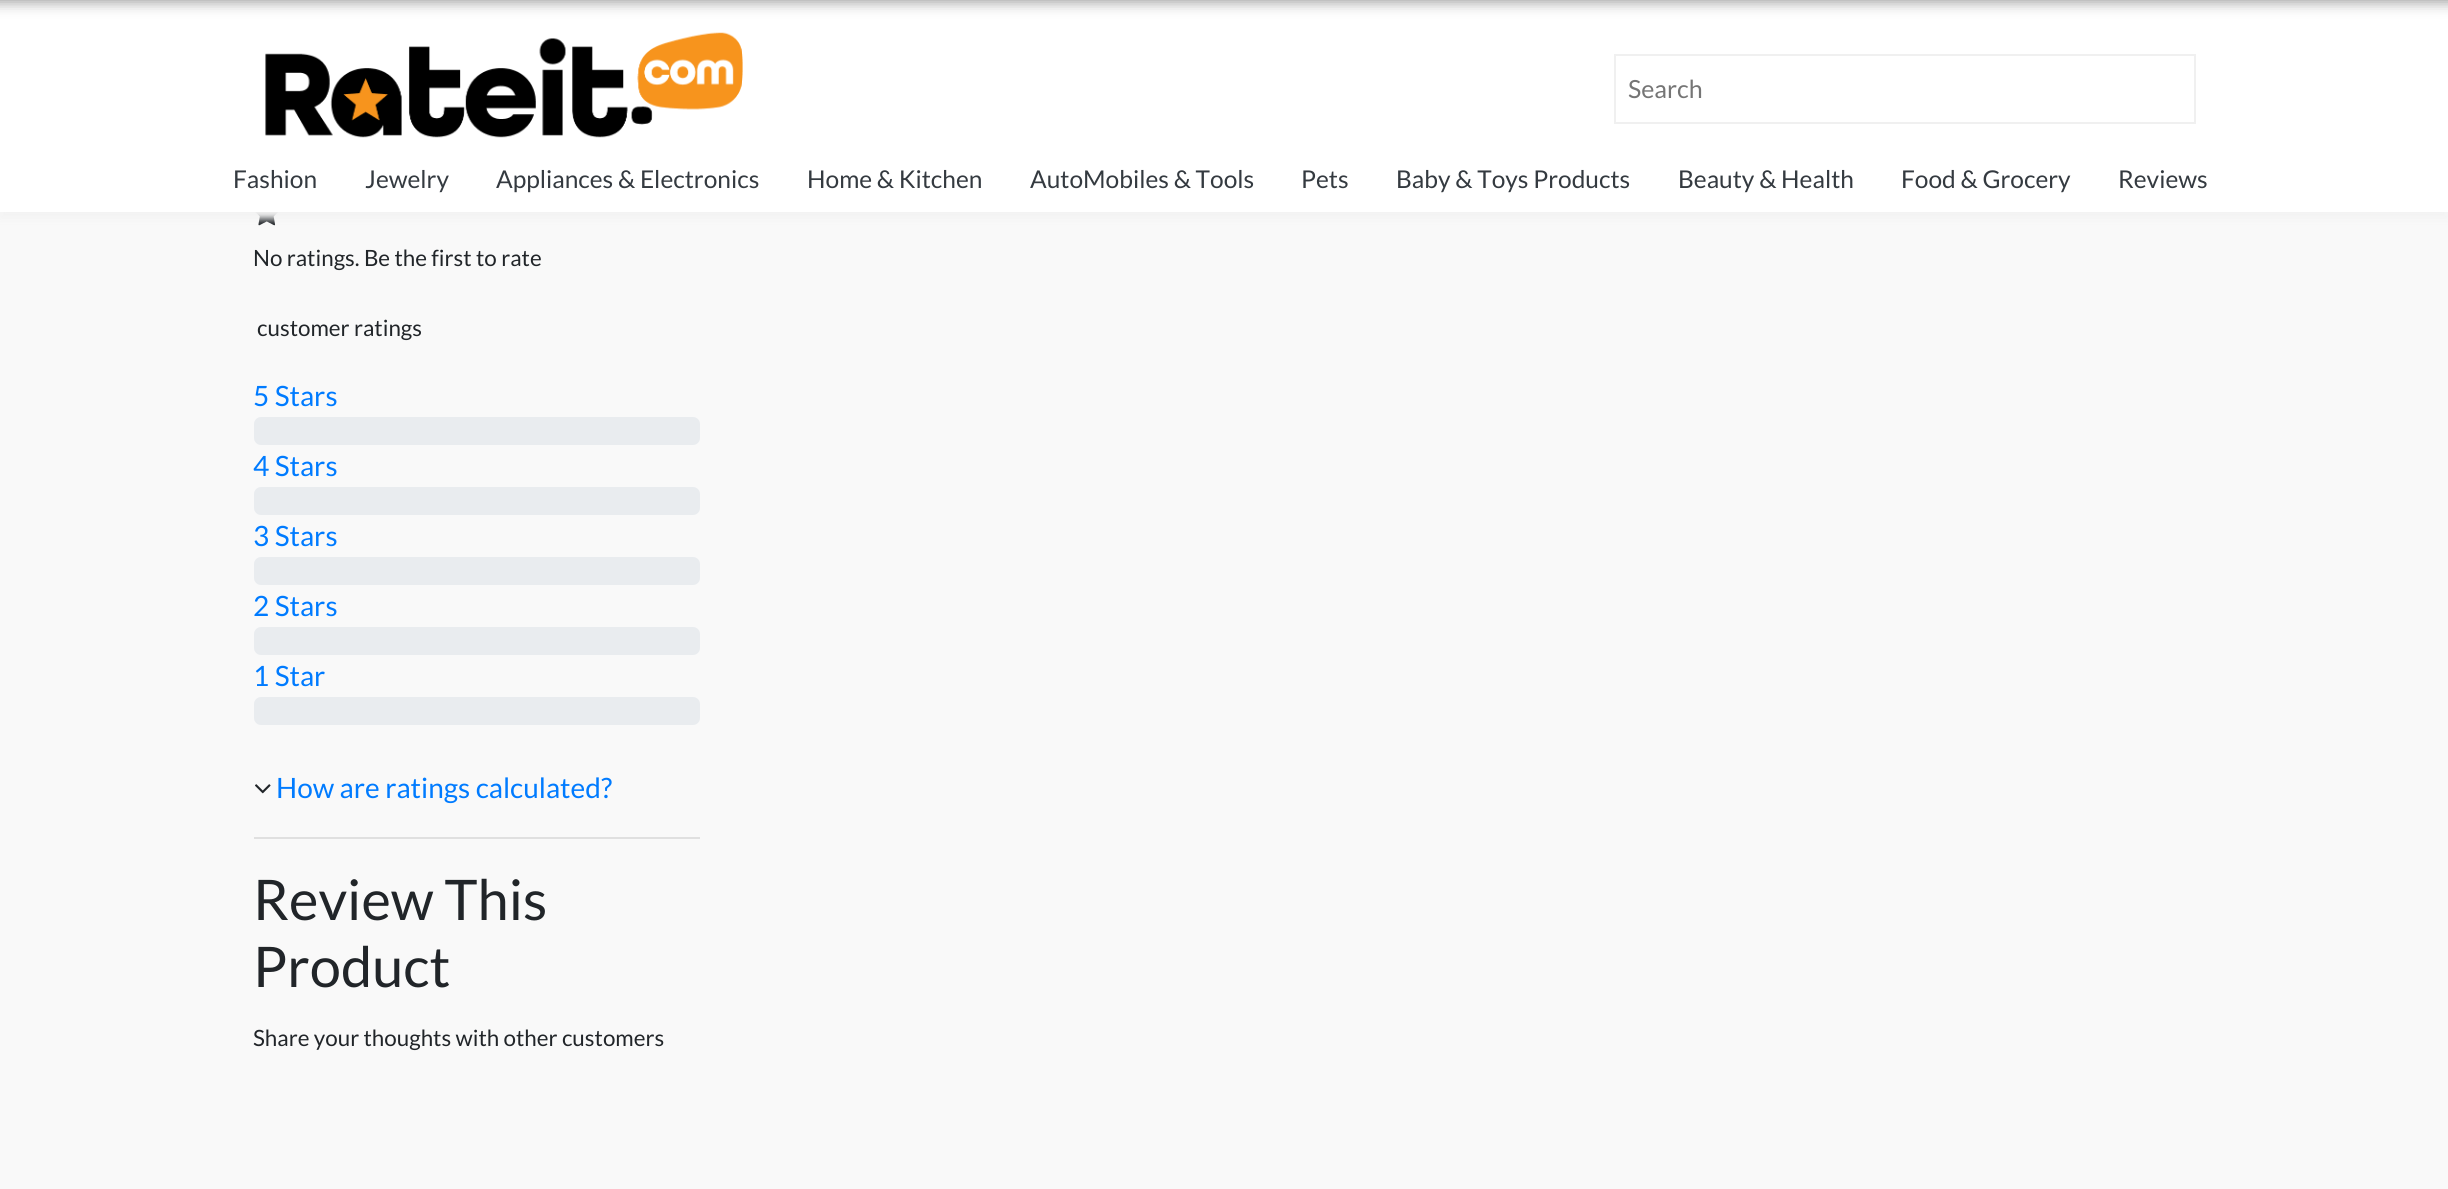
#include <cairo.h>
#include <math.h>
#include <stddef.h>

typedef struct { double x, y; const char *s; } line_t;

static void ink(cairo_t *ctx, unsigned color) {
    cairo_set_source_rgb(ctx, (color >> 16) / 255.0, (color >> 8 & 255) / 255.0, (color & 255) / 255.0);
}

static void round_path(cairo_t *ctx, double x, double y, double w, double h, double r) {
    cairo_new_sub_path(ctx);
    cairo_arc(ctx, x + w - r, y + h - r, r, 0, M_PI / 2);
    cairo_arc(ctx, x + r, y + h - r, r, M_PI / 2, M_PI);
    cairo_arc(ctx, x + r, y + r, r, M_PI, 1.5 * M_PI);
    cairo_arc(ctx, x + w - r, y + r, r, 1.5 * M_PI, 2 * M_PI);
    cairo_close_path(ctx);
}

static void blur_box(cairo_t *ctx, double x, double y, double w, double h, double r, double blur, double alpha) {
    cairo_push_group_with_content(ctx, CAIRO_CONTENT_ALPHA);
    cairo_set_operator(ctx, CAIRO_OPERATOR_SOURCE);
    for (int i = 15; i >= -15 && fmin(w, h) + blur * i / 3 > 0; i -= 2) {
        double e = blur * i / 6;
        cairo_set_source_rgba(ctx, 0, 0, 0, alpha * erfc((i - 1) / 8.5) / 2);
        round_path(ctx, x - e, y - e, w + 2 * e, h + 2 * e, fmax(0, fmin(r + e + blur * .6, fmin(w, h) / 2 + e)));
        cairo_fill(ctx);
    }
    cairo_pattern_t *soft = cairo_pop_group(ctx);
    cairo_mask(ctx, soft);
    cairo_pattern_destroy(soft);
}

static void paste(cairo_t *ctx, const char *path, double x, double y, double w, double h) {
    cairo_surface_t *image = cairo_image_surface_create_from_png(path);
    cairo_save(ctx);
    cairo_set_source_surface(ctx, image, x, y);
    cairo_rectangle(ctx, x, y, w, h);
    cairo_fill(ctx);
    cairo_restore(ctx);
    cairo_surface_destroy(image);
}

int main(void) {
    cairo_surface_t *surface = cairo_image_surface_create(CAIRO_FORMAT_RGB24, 2448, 1189);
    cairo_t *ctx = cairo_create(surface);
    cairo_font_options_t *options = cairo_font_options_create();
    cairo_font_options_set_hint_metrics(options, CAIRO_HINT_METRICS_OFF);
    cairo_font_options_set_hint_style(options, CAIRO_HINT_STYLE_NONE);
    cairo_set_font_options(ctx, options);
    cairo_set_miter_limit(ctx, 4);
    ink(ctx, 0xF9F9F9);
    cairo_paint(ctx);
    paste(ctx, "media/2.png", 255, 212, 23, 14);
    ink(ctx, 0xF3F3F3);
    blur_box(ctx, 0, 7, 2448, 212, 0, 3.5, 1);
    ink(ctx, 0xFFFFFF);
    cairo_rectangle(ctx, 0, 0, 2448, 212);
    cairo_fill(ctx);
    ink(ctx, 0x999999);
    blur_box(ctx, -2, -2, 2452, 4, 0, 7, 1);
    paste(ctx, "media/1.png", 265, 32, 478, 106);
    cairo_rectangle(ctx, 1615, 55, 580, 68);
    ink(ctx, 0xF0F0F0);
    cairo_stroke(ctx);
    cairo_select_font_face(ctx, "Lato", CAIRO_FONT_SLANT_NORMAL, CAIRO_FONT_WEIGHT_NORMAL);
    cairo_set_font_size(ctx, 25);
    ink(ctx, 0x757575);
    cairo_move_to(ctx, 1628, 98);
    cairo_show_text(ctx, "Search");
    cairo_set_font_size(ctx, 24.5);
    ink(ctx, 0x343A40);
    {
        static const line_t items[] = {
            {233, 188, "Fashion"},
            {365, 188, "Jewelry"},
            {496, 188, "Appliances & Electronics"},
            {807, 188, "Home & Kitchen"},
            {1030, 188, "AutoMobiles & Tools"},
            {1301, 188, "Pets"},
            {1396, 188, "Baby & Toys Products"},
            {1678, 188, "Beauty & Health"},
            {1901, 188, "Food & Grocery"},
            {2118, 188, "Reviews"},
        };
        for (size_t i = 0; i < sizeof items / sizeof *items; i++) {
            cairo_move_to(ctx, items[i].x, items[i].y);
            cairo_show_text(ctx, items[i].s);
        }
    }
    cairo_set_font_size(ctx, 22.4);
    ink(ctx, 0x212529);
    cairo_move_to(ctx, 253, 266);
    cairo_show_text(ctx, "No ratings. Be the first to rate");
    cairo_move_to(ctx, 257, 336);
    cairo_show_text(ctx, "customer ratings");
    cairo_set_font_size(ctx, 28);
    ink(ctx, 0x007BFF);
    cairo_move_to(ctx, 253, 406);
    cairo_show_text(ctx, "5 Stars");
    ink(ctx, 0xE9ECEF);
    round_path(ctx, 254, 417, 446, 28, 7);
    cairo_fill(ctx);
    ink(ctx, 0x007BFF);
    cairo_move_to(ctx, 253, 476);
    cairo_show_text(ctx, "4 Stars");
    ink(ctx, 0xE9ECEF);
    round_path(ctx, 254, 487, 446, 28, 7);
    cairo_fill(ctx);
    ink(ctx, 0x007BFF);
    cairo_move_to(ctx, 253, 546);
    cairo_show_text(ctx, "3 Stars");
    ink(ctx, 0xE9ECEF);
    round_path(ctx, 254, 557, 446, 28, 7);
    cairo_fill(ctx);
    ink(ctx, 0x007BFF);
    cairo_move_to(ctx, 253, 616);
    cairo_show_text(ctx, "2 Stars");
    ink(ctx, 0xE9ECEF);
    round_path(ctx, 254, 627, 446, 28, 7);
    cairo_fill(ctx);
    ink(ctx, 0x007BFF);
    cairo_move_to(ctx, 253, 686);
    cairo_show_text(ctx, "1 Star");
    ink(ctx, 0xE9ECEF);
    round_path(ctx, 254, 697, 446, 28, 7);
    cairo_fill(ctx);
    paste(ctx, "media/3.png", 255, 784, 16, 10);
    ink(ctx, 0x007BFF);
    cairo_move_to(ctx, 276, 798);
    cairo_show_text(ctx, "How are ratings calculated?");
    ink(ctx, 0xE0E0E0);
    cairo_rectangle(ctx, 254, 837, 446, 2);
    cairo_fill(ctx);
    cairo_set_font_size(ctx, 56);
    ink(ctx, 0x212529);
    cairo_move_to(ctx, 253, 920);
    cairo_show_text(ctx, "Review This");
    cairo_move_to(ctx, 253, 987);
    cairo_show_text(ctx, "Product");
    cairo_set_font_size(ctx, 22.4);
    cairo_move_to(ctx, 253, 1046);
    cairo_show_text(ctx, "Share your thoughts with other customers");
    cairo_surface_write_to_png(surface, "image.png");
    cairo_font_options_destroy(options);
    cairo_destroy(ctx);
    cairo_surface_destroy(surface);
    return 0;
}
